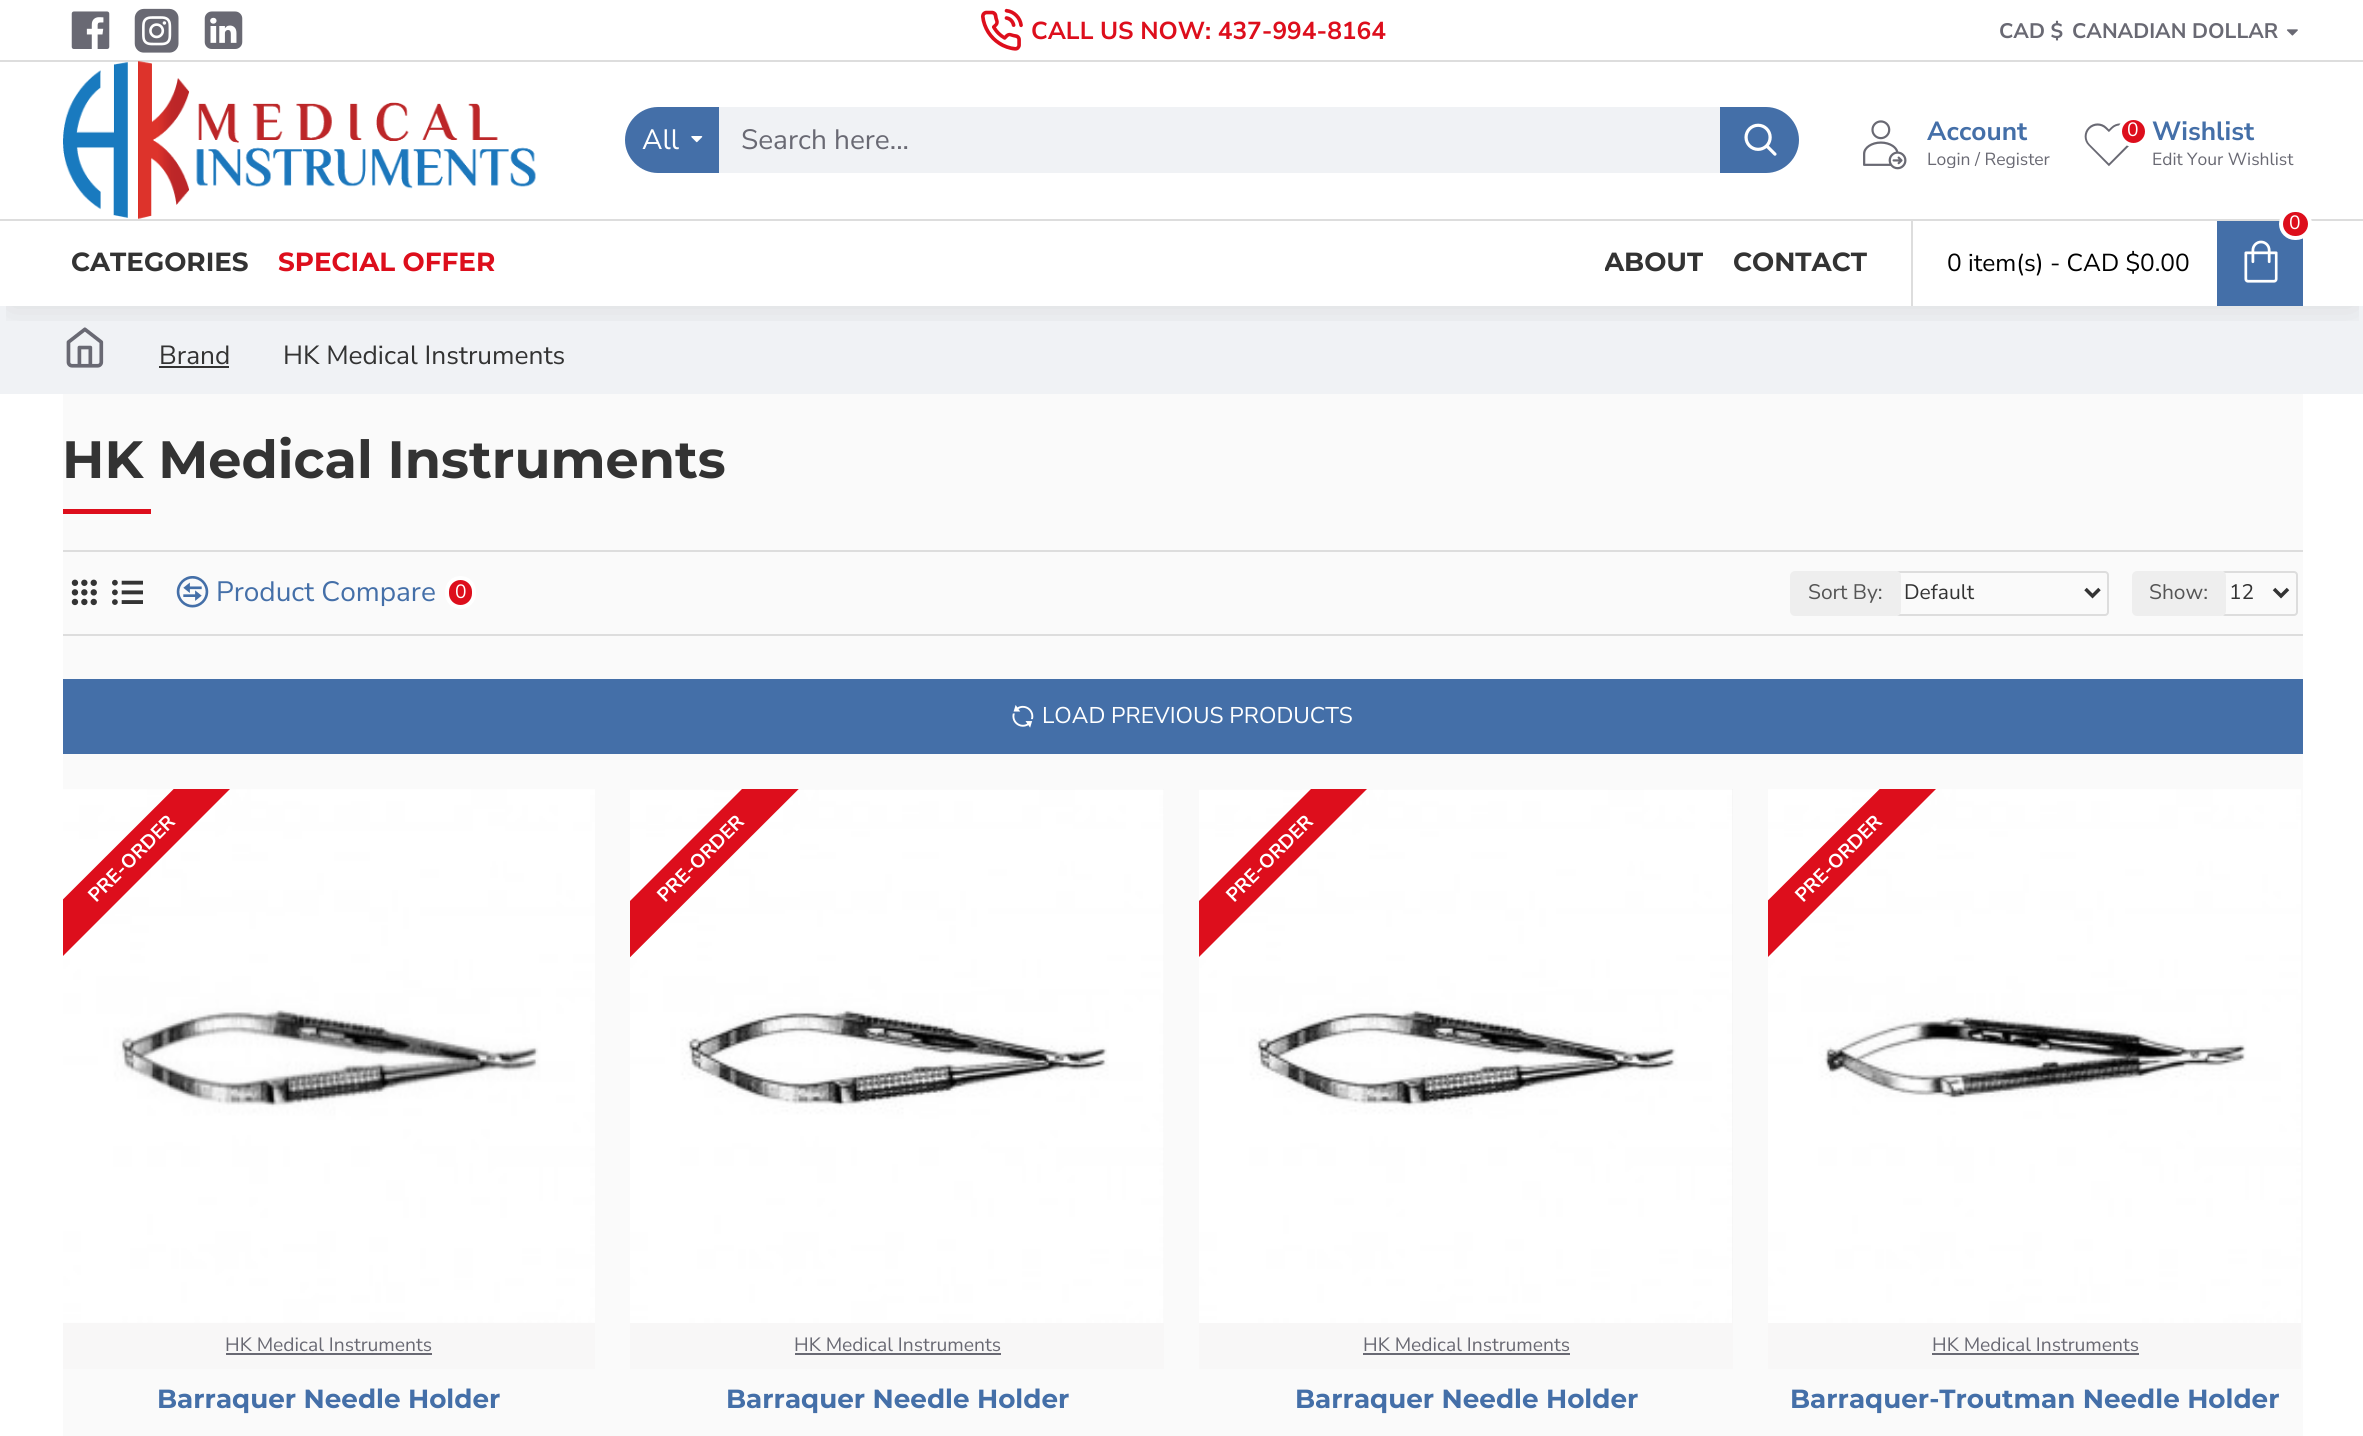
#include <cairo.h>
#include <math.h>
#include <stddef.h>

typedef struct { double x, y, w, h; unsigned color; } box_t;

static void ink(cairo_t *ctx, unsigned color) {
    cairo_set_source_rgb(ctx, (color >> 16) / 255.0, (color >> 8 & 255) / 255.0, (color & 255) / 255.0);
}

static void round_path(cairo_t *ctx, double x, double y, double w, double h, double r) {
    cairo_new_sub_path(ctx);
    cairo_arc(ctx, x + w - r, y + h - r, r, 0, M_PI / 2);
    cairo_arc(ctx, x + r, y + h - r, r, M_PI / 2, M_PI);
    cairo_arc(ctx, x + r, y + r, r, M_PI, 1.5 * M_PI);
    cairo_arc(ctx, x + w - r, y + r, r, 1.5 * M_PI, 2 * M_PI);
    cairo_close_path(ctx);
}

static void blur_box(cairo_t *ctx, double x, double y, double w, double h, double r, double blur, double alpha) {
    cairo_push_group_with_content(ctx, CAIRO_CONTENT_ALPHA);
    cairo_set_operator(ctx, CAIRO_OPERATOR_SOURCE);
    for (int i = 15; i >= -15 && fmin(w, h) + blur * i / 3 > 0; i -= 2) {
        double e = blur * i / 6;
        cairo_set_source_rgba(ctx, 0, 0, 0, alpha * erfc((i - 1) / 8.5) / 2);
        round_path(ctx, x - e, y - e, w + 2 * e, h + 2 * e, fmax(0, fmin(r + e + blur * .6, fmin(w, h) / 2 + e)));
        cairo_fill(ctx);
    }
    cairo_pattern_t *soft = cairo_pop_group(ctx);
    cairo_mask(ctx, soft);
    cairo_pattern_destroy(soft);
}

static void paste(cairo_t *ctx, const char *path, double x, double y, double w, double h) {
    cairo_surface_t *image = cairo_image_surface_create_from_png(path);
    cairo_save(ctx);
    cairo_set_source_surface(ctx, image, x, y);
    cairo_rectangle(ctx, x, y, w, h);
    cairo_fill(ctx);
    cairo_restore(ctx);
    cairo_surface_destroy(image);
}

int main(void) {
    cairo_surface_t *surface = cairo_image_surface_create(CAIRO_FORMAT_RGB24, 2363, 1436);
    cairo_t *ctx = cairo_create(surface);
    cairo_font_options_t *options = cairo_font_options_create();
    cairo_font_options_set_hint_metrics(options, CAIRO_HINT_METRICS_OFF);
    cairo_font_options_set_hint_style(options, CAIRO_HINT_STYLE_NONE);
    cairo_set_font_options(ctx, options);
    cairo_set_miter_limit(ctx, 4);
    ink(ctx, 0xFFFFFF);
    cairo_paint(ctx);
    ink(ctx, 0xF0F2F5);
    cairo_rectangle(ctx, 0, 306, 2363, 88);
    cairo_fill(ctx);
    paste(ctx, "media/12.png", 66, 327, 38, 41);
    cairo_save(ctx);
    cairo_rectangle(ctx, 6, 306, 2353, 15);
    cairo_clip(ctx);
    ink(ctx, 0x000000);
    blur_box(ctx, 9, 18, 2347, 288, 0, 17.5, 0.1);
    cairo_restore(ctx);
    paste(ctx, "media/1.png", 71, 11, 39, 38);
    paste(ctx, "media/2.png", 134, 8, 45, 45);
    paste(ctx, "media/3.png", 204, 11, 39, 38);
    paste(ctx, "media/4.png", 981, 8, 42, 43);
    cairo_select_font_face(ctx, "Nunito Sans", CAIRO_FONT_SLANT_NORMAL, CAIRO_FONT_WEIGHT_BOLD);
    cairo_set_font_size(ctx, 24.5);
    ink(ctx, 0xDD0E1C);
    cairo_move_to(ctx, 1031, 39);
    cairo_show_text(ctx, "CALL US NOW: 437-994-8164");
    cairo_set_font_size(ctx, 21);
    ink(ctx, 0x696973);
    cairo_move_to(ctx, 1999, 38);
    cairo_show_text(ctx, "CAD $");
    cairo_move_to(ctx, 2072, 38);
    cairo_show_text(ctx, "CANADIAN DOLLAR");
    paste(ctx, "media/5.png", 2286, 29, 12, 7);
    ink(ctx, 0xDDDDDD);
    cairo_rectangle(ctx, 0, 60, 2363, 2);
    cairo_fill(ctx);
    paste(ctx, "media/6.png", 63, 61, 473, 158);
    ink(ctx, 0x446FA8);
    cairo_new_path(ctx);
    cairo_move_to(ctx, 658, 107);
    cairo_line_to(ctx, 719, 107);
    cairo_line_to(ctx, 719, 173);
    cairo_line_to(ctx, 658, 173);
    cairo_curve_to(ctx, 640, 173, 625, 158, 625, 140);
    cairo_curve_to(ctx, 625, 122, 640, 107, 658, 107);
    cairo_close_path(ctx);
    cairo_fill(ctx);
    cairo_select_font_face(ctx, "Nunito Sans", CAIRO_FONT_SLANT_NORMAL, CAIRO_FONT_WEIGHT_NORMAL);
    cairo_set_font_size(ctx, 28);
    ink(ctx, 0xFFFFFF);
    cairo_move_to(ctx, 642, 149);
    cairo_show_text(ctx, "All");
    paste(ctx, "media/7.png", 691, 136, 12, 7);
    ink(ctx, 0xF0F2F5);
    cairo_rectangle(ctx, 719, 107, 1001, 66);
    cairo_fill(ctx);
    ink(ctx, 0x696973);
    cairo_move_to(ctx, 741, 149);
    cairo_show_text(ctx, "Search here...");
    ink(ctx, 0x446FA8);
    cairo_new_path(ctx);
    cairo_move_to(ctx, 1720, 107);
    cairo_line_to(ctx, 1766, 107);
    cairo_curve_to(ctx, 1784, 107, 1799, 122, 1799, 140);
    cairo_curve_to(ctx, 1799, 158, 1784, 173, 1766, 173);
    cairo_line_to(ctx, 1720, 173);
    cairo_close_path(ctx);
    cairo_fill(ctx);
    paste(ctx, "media/8.png", 1744, 123, 33, 33);
    paste(ctx, "media/9.png", 1863, 120, 44, 50);
    cairo_select_font_face(ctx, "Nunito Sans", CAIRO_FONT_SLANT_NORMAL, CAIRO_FONT_WEIGHT_BOLD);
    cairo_set_font_size(ctx, 26.25);
    cairo_move_to(ctx, 1927, 140);
    cairo_show_text(ctx, "Account");
    cairo_save(ctx);
    cairo_rectangle(ctx, 1927, 112, 124, 56);
    cairo_clip(ctx);
    cairo_select_font_face(ctx, "Nunito Sans", CAIRO_FONT_SLANT_NORMAL, CAIRO_FONT_WEIGHT_NORMAL);
    cairo_set_font_size(ctx, 17.5);
    ink(ctx, 0x696973);
    cairo_move_to(ctx, 1927, 165);
    cairo_show_text(ctx, "Login / Register");
    cairo_restore(ctx);
    paste(ctx, "media/10.png", 2084, 123, 45, 44);
    ink(ctx, 0xDD0E1C);
    cairo_arc(ctx, 2133.5, 131.5, 13.5, 0, 2 * M_PI);
    cairo_fill_preserve(ctx);
    ink(ctx, 0xFFFFFF);
    cairo_set_line_width(ctx, 4);
    cairo_stroke(ctx);
    cairo_select_font_face(ctx, "Nunito Sans", CAIRO_FONT_SLANT_NORMAL, CAIRO_FONT_WEIGHT_NORMAL);
    cairo_set_font_size(ctx, 19.25);
    cairo_move_to(ctx, 2127, 136);
    cairo_show_text(ctx, "0");
    cairo_select_font_face(ctx, "Nunito Sans", CAIRO_FONT_SLANT_NORMAL, CAIRO_FONT_WEIGHT_BOLD);
    cairo_set_font_size(ctx, 26.25);
    ink(ctx, 0x446FA8);
    cairo_move_to(ctx, 2152, 140);
    cairo_show_text(ctx, "Wishlist");
    cairo_select_font_face(ctx, "Nunito Sans", CAIRO_FONT_SLANT_NORMAL, CAIRO_FONT_WEIGHT_NORMAL);
    cairo_set_font_size(ctx, 17.5);
    ink(ctx, 0x696973);
    cairo_move_to(ctx, 2152, 165);
    cairo_show_text(ctx, "Edit Your Wishlist");
    {
        static const box_t items[] = {
            {0, 219, 2363, 2, 0xDDDDDD},
            {1911, 219, 2, 87, 0xDDDDDD},
            {2217, 221, 86, 85, 0x446FA8},
        };
        for (size_t i = 0; i < sizeof items / sizeof *items; i++) {
            ink(ctx, items[i].color);
            cairo_rectangle(ctx, items[i].x, items[i].y, items[i].w, items[i].h);
            cairo_fill(ctx);
        }
    }
    ink(ctx, 0xDD0E1C);
    round_path(ctx, 2281, 210, 29, 28, 14);
    cairo_fill_preserve(ctx);
    ink(ctx, 0xFFFFFF);
    cairo_stroke(ctx);
    cairo_set_font_size(ctx, 19.25);
    cairo_move_to(ctx, 2289, 229);
    cairo_show_text(ctx, "0");
    cairo_set_font_size(ctx, 24.5);
    ink(ctx, 0x000000);
    cairo_move_to(ctx, 1947, 271);
    cairo_show_text(ctx, "0 item(s) - CAD $0.00");
    paste(ctx, "media/11.png", 2244, 240, 34, 43);
    cairo_select_font_face(ctx, "Montserrat", CAIRO_FONT_SLANT_NORMAL, CAIRO_FONT_WEIGHT_BOLD);
    cairo_set_font_size(ctx, 26.25);
    ink(ctx, 0x333333);
    cairo_move_to(ctx, 71, 271);
    cairo_show_text(ctx, "CATEGORIES");
    ink(ctx, 0xDD0E1C);
    cairo_move_to(ctx, 278, 271);
    cairo_show_text(ctx, "SPECIAL OFFER");
    cairo_save(ctx);
    cairo_rectangle(ctx, 1605, 243, 98, 39);
    cairo_clip(ctx);
    ink(ctx, 0x333333);
    cairo_move_to(ctx, 1604, 271);
    cairo_show_text(ctx, "ABOUT");
    cairo_restore(ctx);
    ink(ctx, 0x333333);
    cairo_move_to(ctx, 1733, 271);
    cairo_show_text(ctx, "CONTACT");
    cairo_select_font_face(ctx, "Nunito Sans", CAIRO_FONT_SLANT_NORMAL, CAIRO_FONT_WEIGHT_NORMAL);
    cairo_move_to(ctx, 159, 364);
    cairo_show_text(ctx, "Brand");
    cairo_rectangle(ctx, 159, 366, 70, 2);
    cairo_fill(ctx);
    cairo_move_to(ctx, 283, 364);
    cairo_show_text(ctx, "HK Medical Instruments");
    ink(ctx, 0xFAFAFA);
    cairo_rectangle(ctx, 63, 394, 2240, 1042);
    cairo_fill(ctx);
    cairo_select_font_face(ctx, "Montserrat", CAIRO_FONT_SLANT_NORMAL, CAIRO_FONT_WEIGHT_BOLD);
    cairo_set_font_size(ctx, 52.5);
    ink(ctx, 0x333333);
    cairo_move_to(ctx, 62, 478);
    cairo_show_text(ctx, "HK Medical Instruments");
    {
        static const box_t items[] = {
            {63, 509, 88, 5, 0xDD0E1C},
            {63, 550, 2240, 2, 0xDDDDDD},
            {63, 634, 2240, 2, 0xDDDDDD},
        };
        for (size_t i = 0; i < sizeof items / sizeof *items; i++) {
            ink(ctx, items[i].color);
            cairo_rectangle(ctx, items[i].x, items[i].y, items[i].w, items[i].h);
            cairo_fill(ctx);
        }
    }
    paste(ctx, "media/13.png", 71, 579, 26, 27);
    paste(ctx, "media/14.png", 112, 579, 31, 26);
    paste(ctx, "media/15.png", 176, 576, 33, 32);
    cairo_select_font_face(ctx, "Nunito Sans", CAIRO_FONT_SLANT_NORMAL, CAIRO_FONT_WEIGHT_NORMAL);
    cairo_set_font_size(ctx, 28);
    ink(ctx, 0x446FA8);
    cairo_move_to(ctx, 216, 601);
    cairo_show_text(ctx, "Product Compare");
    ink(ctx, 0xDD0E1C);
    round_path(ctx, 447, 578, 27, 29, 13.5);
    cairo_fill_preserve(ctx);
    ink(ctx, 0xFFFFFF);
    cairo_stroke(ctx);
    cairo_set_font_size(ctx, 19.25);
    cairo_move_to(ctx, 455, 598);
    cairo_show_text(ctx, "0");
    round_path(ctx, 1896, 572, 212, 43, 3);
    ink(ctx, 0xDDDDDD);
    cairo_set_line_width(ctx, 2);
    cairo_stroke(ctx);
    ink(ctx, 0xEEEEEE);
    round_path(ctx, 1790, 571, 111, 45, 5);
    cairo_fill(ctx);
    cairo_set_font_size(ctx, 21);
    ink(ctx, 0x555555);
    cairo_move_to(ctx, 1808, 599);
    cairo_show_text(ctx, "Sort By:");
    cairo_new_path(ctx);
    cairo_move_to(ctx, 2085.5, 589);
    cairo_line_to(ctx, 2092.5, 596);
    cairo_line_to(ctx, 2099.5, 589);
    ink(ctx, 0x333333);
    cairo_set_line_width(ctx, 3.5);
    cairo_stroke(ctx);
    cairo_move_to(ctx, 1904, 599);
    cairo_show_text(ctx, "Default");
    round_path(ctx, 2222, 572, 75, 43, 3);
    ink(ctx, 0xDDDDDD);
    cairo_set_line_width(ctx, 2);
    cairo_stroke(ctx);
    ink(ctx, 0xEEEEEE);
    round_path(ctx, 2132, 571, 94, 45, 5);
    cairo_fill(ctx);
    ink(ctx, 0x555555);
    cairo_move_to(ctx, 2149, 599);
    cairo_show_text(ctx, "Show:");
    cairo_new_path(ctx);
    cairo_move_to(ctx, 2274, 589);
    cairo_line_to(ctx, 2281, 596);
    cairo_line_to(ctx, 2288, 589);
    ink(ctx, 0x333333);
    cairo_set_line_width(ctx, 3.5);
    cairo_stroke(ctx);
    cairo_move_to(ctx, 2229, 599);
    cairo_show_text(ctx, "12");
    ink(ctx, 0x446FA8);
    cairo_rectangle(ctx, 63, 679, 2240, 75);
    cairo_fill(ctx);
    paste(ctx, "media/16.png", 1012, 705, 22, 23);
    cairo_set_font_size(ctx, 22.75);
    ink(ctx, 0xFFFFFF);
    cairo_move_to(ctx, 1042, 723);
    cairo_show_text(ctx, "LOAD PREVIOUS PRODUCTS");
    paste(ctx, "media/17.png", 63, 789, 532, 534);
    cairo_save(ctx);
    cairo_rectangle(ctx, 63, 789, 532, 534);
    cairo_clip(ctx);
    ink(ctx, 0xDD0E1C);
    cairo_new_path(ctx);
    cairo_move_to(ctx, -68, 1030);
    cairo_line_to(ctx, 304, 659);
    cairo_line_to(ctx, 332, 687);
    cairo_line_to(ctx, -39, 1058);
    cairo_close_path(ctx);
    cairo_fill(ctx);
    cairo_restore(ctx);
    cairo_select_font_face(ctx, "Nunito Sans", CAIRO_FONT_SLANT_NORMAL, CAIRO_FONT_WEIGHT_BOLD);
    cairo_set_font_size(ctx, 19.25);
    cairo_save(ctx);
    cairo_translate(ctx, 96, 903);
    cairo_rotate(ctx, -45 * M_PI / 180);
    cairo_move_to(ctx, 0, 0);
    cairo_show_text(ctx, "PRE-ORDER");
    cairo_restore(ctx);
    ink(ctx, 0xF8F7F7);
    cairo_rectangle(ctx, 63, 1323, 532, 46);
    cairo_fill(ctx);
    cairo_select_font_face(ctx, "Nunito Sans", CAIRO_FONT_SLANT_NORMAL, CAIRO_FONT_WEIGHT_NORMAL);
    ink(ctx, 0x696973);
    cairo_move_to(ctx, 225, 1351);
    cairo_show_text(ctx, "HK Medical Instruments");
    cairo_rectangle(ctx, 226, 1353, 206, 2);
    cairo_fill(ctx);
    cairo_select_font_face(ctx, "Montserrat", CAIRO_FONT_SLANT_NORMAL, CAIRO_FONT_WEIGHT_BOLD);
    cairo_set_font_size(ctx, 26.25);
    ink(ctx, 0x446FA8);
    cairo_move_to(ctx, 157, 1408);
    cairo_show_text(ctx, "Barraquer Needle Holder");
    ink(ctx, 0xEEEEEE);
    cairo_rectangle(ctx, 630, 789, 534, 534);
    cairo_fill(ctx);
    paste(ctx, "media/18.png", 630, 789, 534, 534);
    cairo_save(ctx);
    cairo_rectangle(ctx, 630, 789, 534, 534);
    cairo_clip(ctx);
    ink(ctx, 0xDD0E1C);
    cairo_new_path(ctx);
    cairo_move_to(ctx, 501, 1030);
    cairo_line_to(ctx, 872, 659);
    cairo_line_to(ctx, 901, 687);
    cairo_line_to(ctx, 529, 1058);
    cairo_close_path(ctx);
    cairo_fill(ctx);
    cairo_restore(ctx);
    cairo_select_font_face(ctx, "Nunito Sans", CAIRO_FONT_SLANT_NORMAL, CAIRO_FONT_WEIGHT_BOLD);
    cairo_set_font_size(ctx, 19.25);
    ink(ctx, 0xFFFFFF);
    cairo_save(ctx);
    cairo_translate(ctx, 665, 903);
    cairo_rotate(ctx, -45 * M_PI / 180);
    cairo_move_to(ctx, 0, 0);
    cairo_show_text(ctx, "PRE-ORDER");
    cairo_restore(ctx);
    ink(ctx, 0xF8F7F7);
    cairo_rectangle(ctx, 630, 1323, 534, 46);
    cairo_fill(ctx);
    cairo_select_font_face(ctx, "Nunito Sans", CAIRO_FONT_SLANT_NORMAL, CAIRO_FONT_WEIGHT_NORMAL);
    ink(ctx, 0x696973);
    cairo_move_to(ctx, 794, 1351);
    cairo_show_text(ctx, "HK Medical Instruments");
    cairo_rectangle(ctx, 795, 1353, 206, 2);
    cairo_fill(ctx);
    cairo_select_font_face(ctx, "Montserrat", CAIRO_FONT_SLANT_NORMAL, CAIRO_FONT_WEIGHT_BOLD);
    cairo_set_font_size(ctx, 26.25);
    ink(ctx, 0x446FA8);
    cairo_move_to(ctx, 726, 1408);
    cairo_show_text(ctx, "Barraquer Needle Holder");
    ink(ctx, 0xEEEEEE);
    cairo_rectangle(ctx, 1199, 789, 534, 534);
    cairo_fill(ctx);
    paste(ctx, "media/19.png", 1199, 789, 534, 534);
    cairo_save(ctx);
    cairo_rectangle(ctx, 1199, 789, 534, 534);
    cairo_clip(ctx);
    ink(ctx, 0xDD0E1C);
    cairo_new_path(ctx);
    cairo_move_to(ctx, 1070, 1030);
    cairo_line_to(ctx, 1441, 659);
    cairo_line_to(ctx, 1469, 687);
    cairo_line_to(ctx, 1098, 1058);
    cairo_close_path(ctx);
    cairo_fill(ctx);
    cairo_restore(ctx);
    cairo_select_font_face(ctx, "Nunito Sans", CAIRO_FONT_SLANT_NORMAL, CAIRO_FONT_WEIGHT_BOLD);
    cairo_set_font_size(ctx, 19.25);
    ink(ctx, 0xFFFFFF);
    cairo_save(ctx);
    cairo_translate(ctx, 1234, 903);
    cairo_rotate(ctx, -45 * M_PI / 180);
    cairo_move_to(ctx, 0, 0);
    cairo_show_text(ctx, "PRE-ORDER");
    cairo_restore(ctx);
    ink(ctx, 0xF8F7F7);
    cairo_rectangle(ctx, 1199, 1323, 534, 46);
    cairo_fill(ctx);
    cairo_select_font_face(ctx, "Nunito Sans", CAIRO_FONT_SLANT_NORMAL, CAIRO_FONT_WEIGHT_NORMAL);
    ink(ctx, 0x696973);
    cairo_move_to(ctx, 1363, 1351);
    cairo_show_text(ctx, "HK Medical Instruments");
    cairo_rectangle(ctx, 1363, 1353, 207, 2);
    cairo_fill(ctx);
    cairo_select_font_face(ctx, "Montserrat", CAIRO_FONT_SLANT_NORMAL, CAIRO_FONT_WEIGHT_BOLD);
    cairo_set_font_size(ctx, 26.25);
    ink(ctx, 0x446FA8);
    cairo_move_to(ctx, 1295, 1408);
    cairo_show_text(ctx, "Barraquer Needle Holder");
    paste(ctx, "media/20.png", 1768, 789, 533, 534);
    cairo_save(ctx);
    cairo_rectangle(ctx, 1768, 789, 533, 534);
    cairo_clip(ctx);
    ink(ctx, 0xDD0E1C);
    cairo_new_path(ctx);
    cairo_move_to(ctx, 1638, 1030);
    cairo_line_to(ctx, 2010, 659);
    cairo_line_to(ctx, 2038, 687);
    cairo_line_to(ctx, 1667, 1058);
    cairo_close_path(ctx);
    cairo_fill(ctx);
    cairo_restore(ctx);
    cairo_select_font_face(ctx, "Nunito Sans", CAIRO_FONT_SLANT_NORMAL, CAIRO_FONT_WEIGHT_BOLD);
    cairo_set_font_size(ctx, 19.25);
    ink(ctx, 0xFFFFFF);
    cairo_save(ctx);
    cairo_translate(ctx, 1803, 903);
    cairo_rotate(ctx, -45 * M_PI / 180);
    cairo_move_to(ctx, 0, 0);
    cairo_show_text(ctx, "PRE-ORDER");
    cairo_restore(ctx);
    ink(ctx, 0xF8F7F7);
    cairo_rectangle(ctx, 1768, 1323, 533, 46);
    cairo_fill(ctx);
    cairo_select_font_face(ctx, "Nunito Sans", CAIRO_FONT_SLANT_NORMAL, CAIRO_FONT_WEIGHT_NORMAL);
    ink(ctx, 0x696973);
    cairo_move_to(ctx, 1932, 1351);
    cairo_show_text(ctx, "HK Medical Instruments");
    cairo_rectangle(ctx, 1932, 1353, 207, 2);
    cairo_fill(ctx);
    cairo_select_font_face(ctx, "Montserrat", CAIRO_FONT_SLANT_NORMAL, CAIRO_FONT_WEIGHT_BOLD);
    cairo_set_font_size(ctx, 26.25);
    ink(ctx, 0x446FA8);
    cairo_move_to(ctx, 1790, 1408);
    cairo_show_text(ctx, "Barraquer-Troutman Needle Holder");
    cairo_surface_write_to_png(surface, "image.png");
    cairo_font_options_destroy(options);
    cairo_destroy(ctx);
    cairo_surface_destroy(surface);
    return 0;
}
